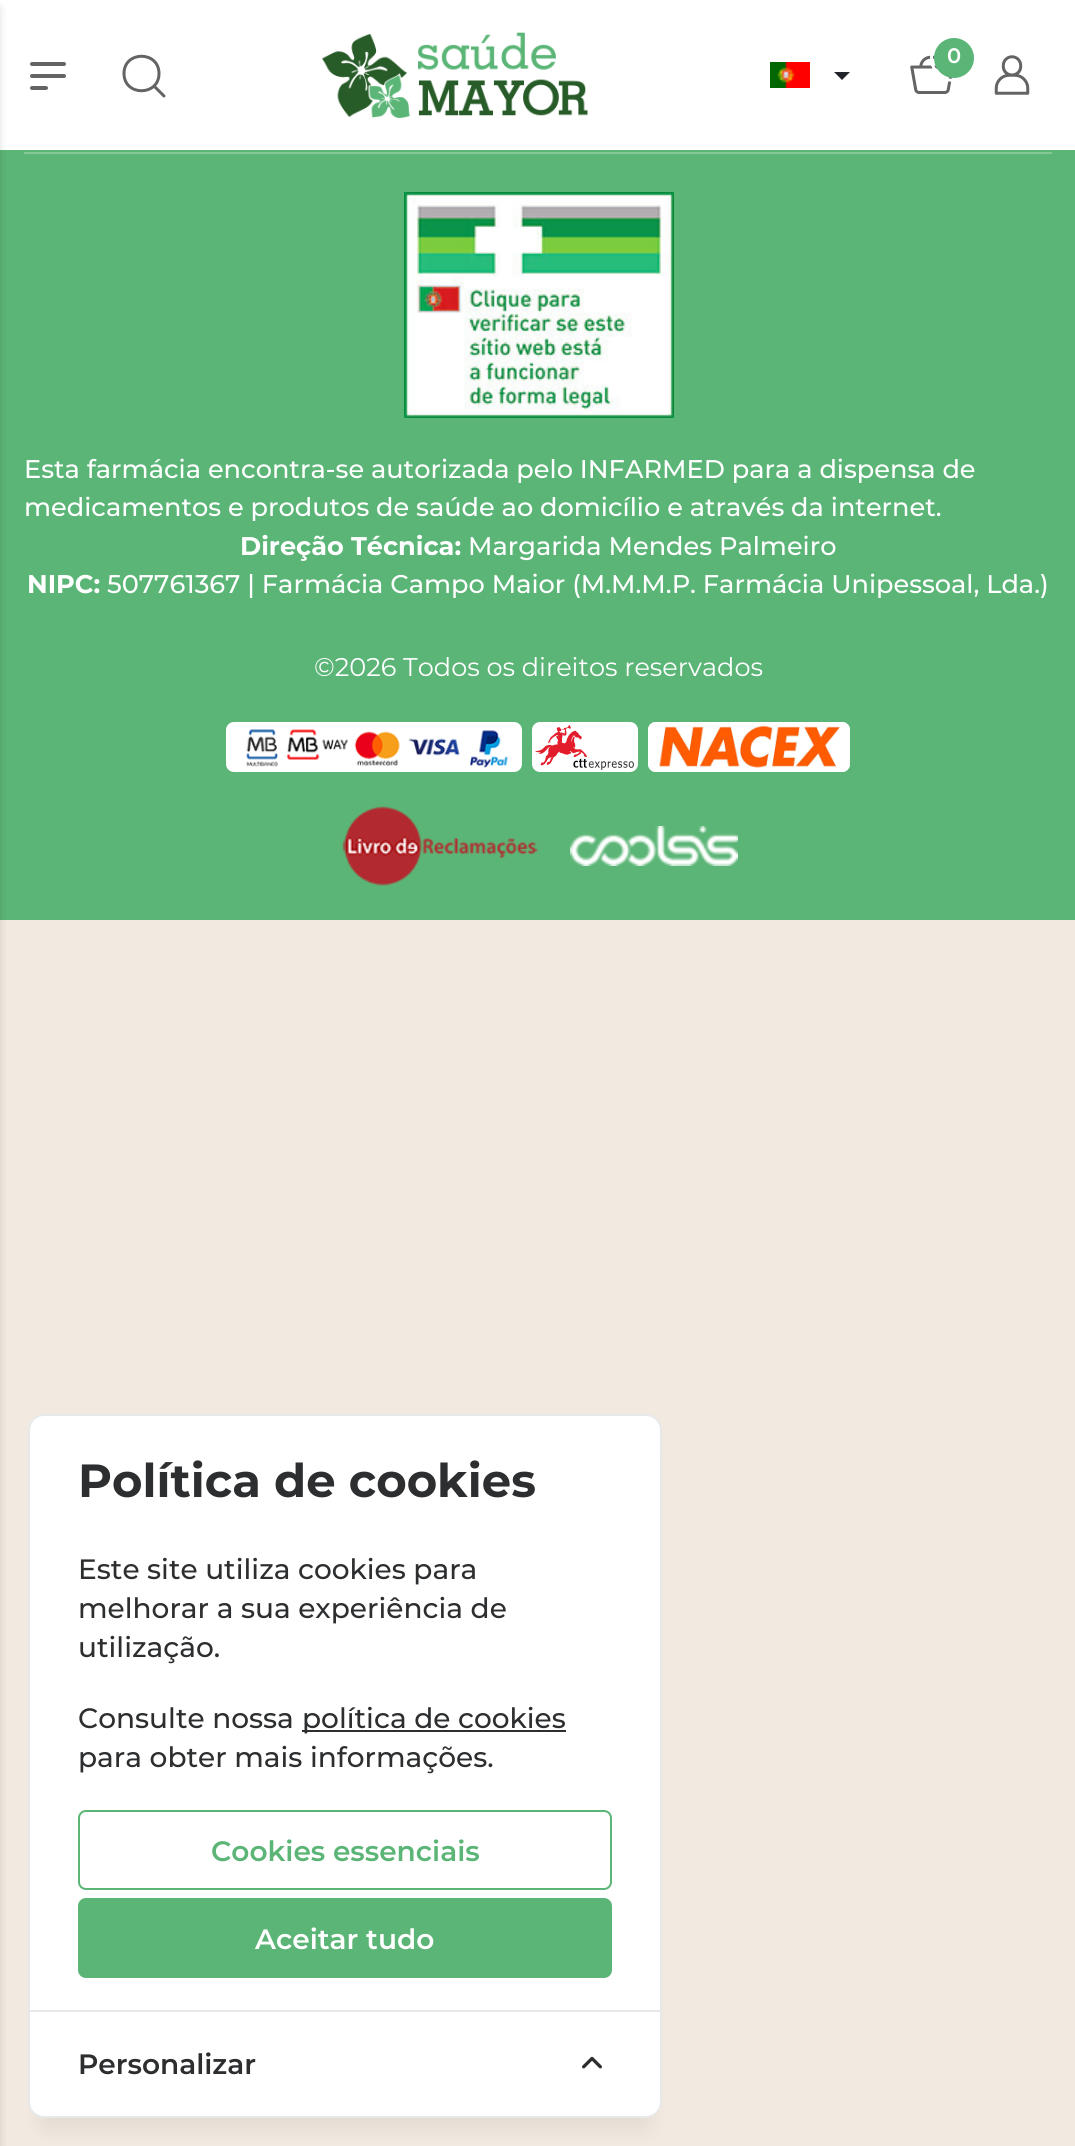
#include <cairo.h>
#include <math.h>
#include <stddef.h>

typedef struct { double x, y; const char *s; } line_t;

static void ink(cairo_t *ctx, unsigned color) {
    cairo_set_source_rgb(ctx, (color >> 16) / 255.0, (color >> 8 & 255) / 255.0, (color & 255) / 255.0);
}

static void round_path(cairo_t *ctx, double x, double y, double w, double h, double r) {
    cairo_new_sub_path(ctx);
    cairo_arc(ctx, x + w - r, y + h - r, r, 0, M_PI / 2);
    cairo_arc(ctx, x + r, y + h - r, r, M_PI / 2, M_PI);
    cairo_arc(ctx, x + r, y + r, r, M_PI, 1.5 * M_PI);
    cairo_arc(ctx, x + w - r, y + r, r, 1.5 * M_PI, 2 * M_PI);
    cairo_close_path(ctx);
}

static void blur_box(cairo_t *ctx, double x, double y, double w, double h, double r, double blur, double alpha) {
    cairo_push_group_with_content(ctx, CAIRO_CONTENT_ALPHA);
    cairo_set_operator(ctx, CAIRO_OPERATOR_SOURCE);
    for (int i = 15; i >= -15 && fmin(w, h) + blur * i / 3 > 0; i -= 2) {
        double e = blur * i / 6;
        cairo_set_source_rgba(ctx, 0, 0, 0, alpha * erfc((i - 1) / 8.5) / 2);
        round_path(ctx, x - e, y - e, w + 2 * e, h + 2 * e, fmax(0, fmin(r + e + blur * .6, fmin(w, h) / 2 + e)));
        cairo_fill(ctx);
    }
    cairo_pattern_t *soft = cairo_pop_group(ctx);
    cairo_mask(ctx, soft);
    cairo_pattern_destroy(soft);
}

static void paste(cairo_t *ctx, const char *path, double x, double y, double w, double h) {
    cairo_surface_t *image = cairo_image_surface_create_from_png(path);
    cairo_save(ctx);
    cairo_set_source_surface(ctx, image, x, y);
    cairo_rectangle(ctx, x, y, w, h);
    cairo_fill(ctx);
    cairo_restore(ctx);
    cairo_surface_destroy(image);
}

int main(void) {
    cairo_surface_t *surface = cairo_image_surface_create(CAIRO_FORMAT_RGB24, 1075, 2146);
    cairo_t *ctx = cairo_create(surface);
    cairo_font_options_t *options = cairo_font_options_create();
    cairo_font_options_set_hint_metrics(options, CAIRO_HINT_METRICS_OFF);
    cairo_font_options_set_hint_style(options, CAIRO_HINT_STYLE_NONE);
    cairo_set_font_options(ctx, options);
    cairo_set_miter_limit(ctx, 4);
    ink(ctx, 0xF2E9E0);
    cairo_paint(ctx);
    ink(ctx, 0xFFFFFF);
    cairo_rectangle(ctx, 0, 0, 1075, 150);
    cairo_fill(ctx);
    ink(ctx, 0x5BB576);
    cairo_rectangle(ctx, 0, 150, 1075, 770);
    cairo_fill(ctx);
    ink(ctx, 0x000000);
    blur_box(ctx, -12, 8, 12, 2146, 0, 4, 0.13);
    cairo_new_path(ctx);
    cairo_move_to(ctx, 32, 64);
    cairo_line_to(ctx, 64, 64);
    cairo_move_to(ctx, 32, 76);
    cairo_line_to(ctx, 64, 76);
    cairo_move_to(ctx, 32, 88);
    cairo_line_to(ctx, 46, 88);
    ink(ctx, 0x646464);
    cairo_set_line_width(ctx, 4);
    cairo_set_line_cap(ctx, CAIRO_LINE_CAP_ROUND);
    cairo_set_line_join(ctx, CAIRO_LINE_JOIN_ROUND);
    cairo_stroke(ctx);
    cairo_new_path(ctx);
    cairo_move_to(ctx, 154, 86);
    cairo_line_to(ctx, 164, 96);
    cairo_move_to(ctx, 159, 73.5);
    cairo_curve_to(ctx, 159, 96.5, 124, 96.5, 124, 73.5);
    cairo_curve_to(ctx, 124, 50.5, 159, 50.5, 159, 73.5);
    cairo_close_path(ctx);
    cairo_set_line_width(ctx, 3);
    cairo_stroke(ctx);
    paste(ctx, "media/1.png", 322, 32, 266, 86);
    paste(ctx, "media/2.png", 770, 62, 40, 26);
    ink(ctx, 0x212529);
    cairo_new_path(ctx);
    cairo_move_to(ctx, 834, 72);
    cairo_line_to(ctx, 850, 72);
    cairo_line_to(ctx, 842, 80);
    cairo_close_path(ctx);
    cairo_fill(ctx);
    paste(ctx, "media/3.png", 910, 55, 42, 39);
    cairo_arc(ctx, 954, 58, 22.5, 0, 2 * M_PI);
    ink(ctx, 0xFFFFFF);
    cairo_set_line_cap(ctx, CAIRO_LINE_CAP_BUTT);
    cairo_set_line_join(ctx, CAIRO_LINE_JOIN_MITER);
    cairo_stroke(ctx);
    ink(ctx, 0x5BB576);
    cairo_arc(ctx, 954, 58, 20, 0, 2 * M_PI);
    cairo_fill(ctx);
    cairo_select_font_face(ctx, "Montserrat SemiBold", CAIRO_FONT_SLANT_NORMAL, CAIRO_FONT_WEIGHT_NORMAL);
    cairo_set_font_size(ctx, 21);
    ink(ctx, 0xFFFFFF);
    cairo_move_to(ctx, 947, 63);
    cairo_show_text(ctx, "0");
    paste(ctx, "media/4.png", 994, 55, 36, 40);
    ink(ctx, 0x84C898);
    cairo_rectangle(ctx, 24, 152, 1028, 2);
    cairo_fill(ctx);
    paste(ctx, "media/5.png", 404, 192, 270, 226);
    cairo_select_font_face(ctx, "Montserrat Medium", CAIRO_FONT_SLANT_NORMAL, CAIRO_FONT_WEIGHT_NORMAL);
    cairo_set_font_size(ctx, 25.6);
    ink(ctx, 0xFFFFFF);
    cairo_move_to(ctx, 24, 478);
    cairo_show_text(ctx, "Esta farmácia encontra-se autorizada pelo INFARMED para a dispensa de");
    cairo_move_to(ctx, 24, 516);
    cairo_show_text(ctx, "medicamentos e produtos de saúde ao domicílio e através da internet.");
    cairo_select_font_face(ctx, "Montserrat", CAIRO_FONT_SLANT_NORMAL, CAIRO_FONT_WEIGHT_BOLD);
    cairo_move_to(ctx, 240, 555);
    cairo_show_text(ctx, "Direção Técnica:");
    cairo_select_font_face(ctx, "Montserrat Medium", CAIRO_FONT_SLANT_NORMAL, CAIRO_FONT_WEIGHT_NORMAL);
    cairo_move_to(ctx, 468, 555);
    cairo_show_text(ctx, "Margarida Mendes Palmeiro");
    cairo_select_font_face(ctx, "Montserrat", CAIRO_FONT_SLANT_NORMAL, CAIRO_FONT_WEIGHT_BOLD);
    cairo_move_to(ctx, 27, 593);
    cairo_show_text(ctx, "NIPC:");
    cairo_select_font_face(ctx, "Montserrat Medium", CAIRO_FONT_SLANT_NORMAL, CAIRO_FONT_WEIGHT_NORMAL);
    cairo_move_to(ctx, 107, 593);
    cairo_show_text(ctx, "507761367 | Farmácia Campo Maior (M.M.M.P. Farmácia Unipessoal, Lda.)");
    cairo_select_font_face(ctx, "Montserrat", CAIRO_FONT_SLANT_NORMAL, CAIRO_FONT_WEIGHT_NORMAL);
    cairo_move_to(ctx, 314, 676);
    cairo_show_text(ctx, "©2026 Todos os direitos reservados");
    round_path(ctx, 226, 722, 296, 50, 8);
    cairo_fill(ctx);
    paste(ctx, "media/6.png", 246, 729, 262, 39);
    round_path(ctx, 532, 722, 106, 50, 8);
    cairo_fill(ctx);
    paste(ctx, "media/7.png", 535, 725, 99, 45);
    round_path(ctx, 648, 722, 202, 50, 8);
    cairo_fill(ctx);
    paste(ctx, "media/8.png", 648, 722, 202, 50);
    paste(ctx, "media/9.png", 342, 806, 196, 80);
    paste(ctx, "media/10.png", 570, 826, 168, 40);
    ink(ctx, 0x000000);
    blur_box(ctx, 44, 1454, 602, 672, 0, 12, 0.08);
    ink(ctx, 0xFFFFFF);
    round_path(ctx, 29, 1415, 632, 702, 15);
    cairo_fill_preserve(ctx);
    ink(ctx, 0xE7E8E9);
    cairo_set_line_width(ctx, 2);
    cairo_stroke(ctx);
    cairo_select_font_face(ctx, "Montserrat", CAIRO_FONT_SLANT_NORMAL, CAIRO_FONT_WEIGHT_BOLD);
    cairo_set_font_size(ctx, 46.5);
    ink(ctx, 0x2C2E30);
    cairo_move_to(ctx, 78, 1497);
    cairo_show_text(ctx, "Política de cookies");
    cairo_select_font_face(ctx, "Montserrat Medium", CAIRO_FONT_SLANT_NORMAL, CAIRO_FONT_WEIGHT_NORMAL);
    cairo_set_font_size(ctx, 28);
    {
        static const line_t items[] = {
            {78, 1579, "Este site utiliza cookies para"},
            {78, 1618, "melhorar a sua experiência de"},
            {78, 1657, "utilização."},
            {78, 1728, "Consulte nossa"},
        };
        for (size_t i = 0; i < sizeof items / sizeof *items; i++) {
            cairo_move_to(ctx, items[i].x, items[i].y);
            cairo_show_text(ctx, items[i].s);
        }
    }
    cairo_rectangle(ctx, 302, 1730, 264, 2);
    cairo_fill(ctx);
    cairo_move_to(ctx, 302, 1728);
    cairo_show_text(ctx, "política de cookies");
    cairo_move_to(ctx, 78, 1767);
    cairo_show_text(ctx, "para obter mais informações.");
    round_path(ctx, 79, 1811, 532, 78, 7);
    ink(ctx, 0x5BB576);
    cairo_stroke(ctx);
    cairo_select_font_face(ctx, "Montserrat SemiBold", CAIRO_FONT_SLANT_NORMAL, CAIRO_FONT_WEIGHT_NORMAL);
    cairo_move_to(ctx, 211, 1861);
    cairo_show_text(ctx, "Cookies essenciais");
    round_path(ctx, 79, 1899, 532, 78, 7);
    cairo_fill_preserve(ctx);
    cairo_stroke(ctx);
    ink(ctx, 0xFFFFFF);
    cairo_move_to(ctx, 255, 1949);
    cairo_show_text(ctx, "Aceitar tudo");
    ink(ctx, 0xE7E8E9);
    cairo_rectangle(ctx, 30, 2010, 630, 2);
    cairo_fill(ctx);
    ink(ctx, 0x2C2E30);
    cairo_move_to(ctx, 78, 2074);
    cairo_show_text(ctx, "Personalizar");
    paste(ctx, "media/11.png", 582, 2056, 20, 13);
    cairo_surface_write_to_png(surface, "image.png");
    cairo_font_options_destroy(options);
    cairo_destroy(ctx);
    cairo_surface_destroy(surface);
    return 0;
}
